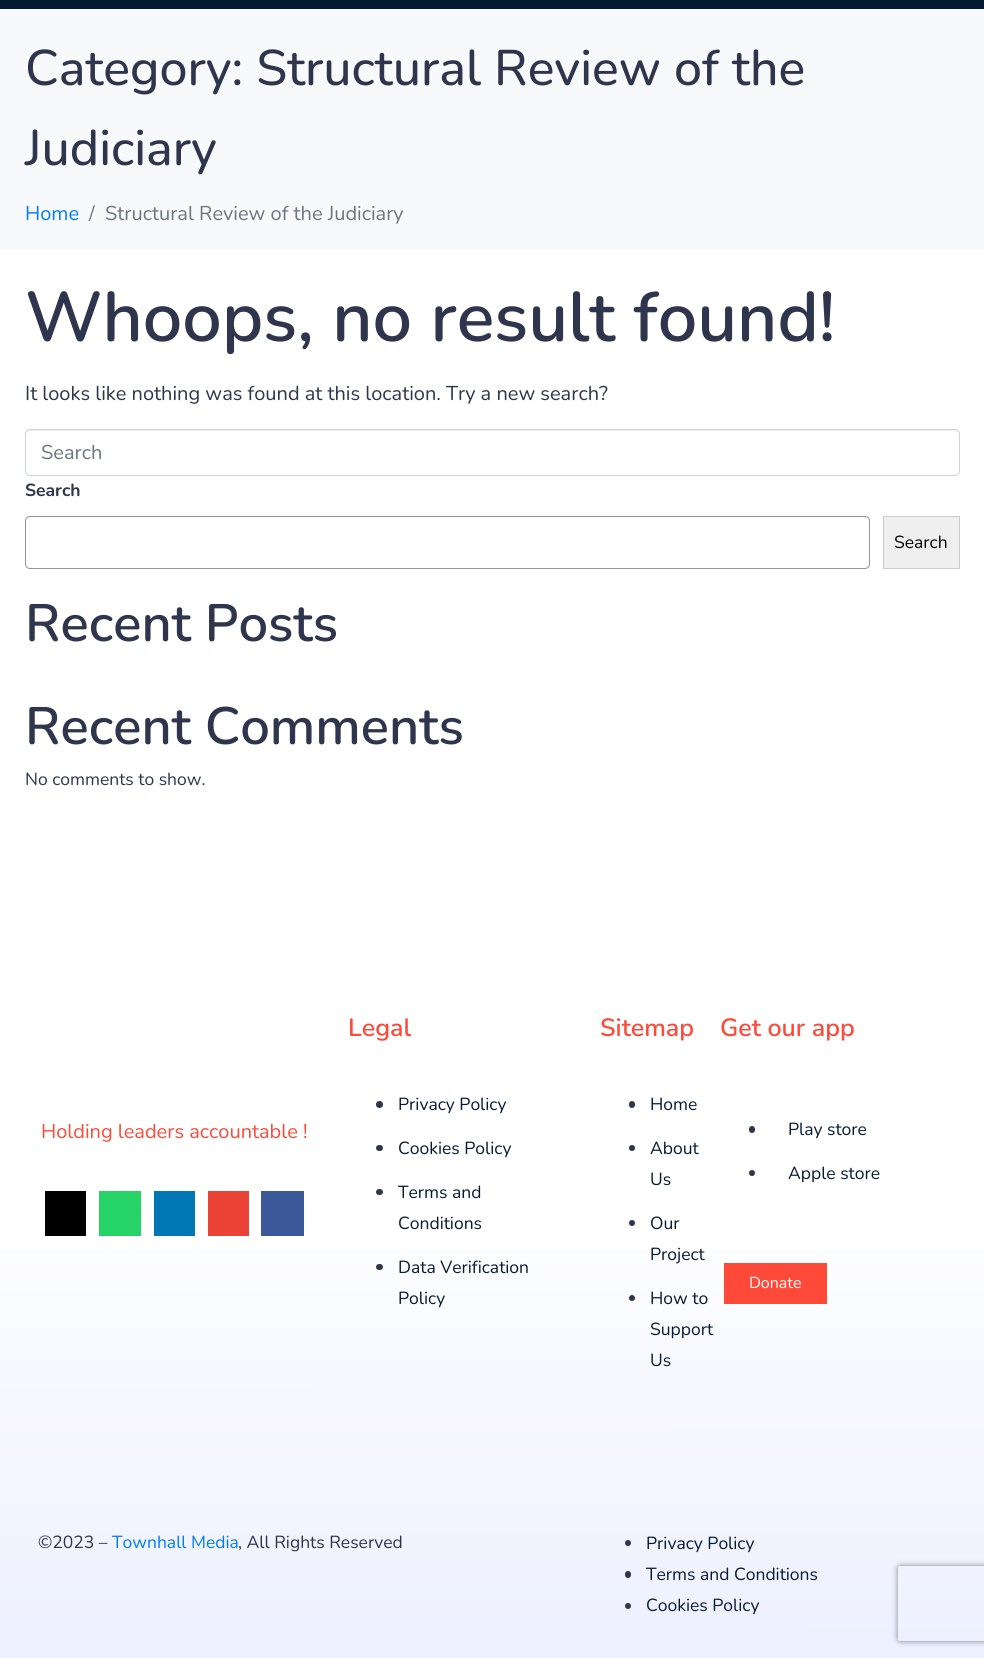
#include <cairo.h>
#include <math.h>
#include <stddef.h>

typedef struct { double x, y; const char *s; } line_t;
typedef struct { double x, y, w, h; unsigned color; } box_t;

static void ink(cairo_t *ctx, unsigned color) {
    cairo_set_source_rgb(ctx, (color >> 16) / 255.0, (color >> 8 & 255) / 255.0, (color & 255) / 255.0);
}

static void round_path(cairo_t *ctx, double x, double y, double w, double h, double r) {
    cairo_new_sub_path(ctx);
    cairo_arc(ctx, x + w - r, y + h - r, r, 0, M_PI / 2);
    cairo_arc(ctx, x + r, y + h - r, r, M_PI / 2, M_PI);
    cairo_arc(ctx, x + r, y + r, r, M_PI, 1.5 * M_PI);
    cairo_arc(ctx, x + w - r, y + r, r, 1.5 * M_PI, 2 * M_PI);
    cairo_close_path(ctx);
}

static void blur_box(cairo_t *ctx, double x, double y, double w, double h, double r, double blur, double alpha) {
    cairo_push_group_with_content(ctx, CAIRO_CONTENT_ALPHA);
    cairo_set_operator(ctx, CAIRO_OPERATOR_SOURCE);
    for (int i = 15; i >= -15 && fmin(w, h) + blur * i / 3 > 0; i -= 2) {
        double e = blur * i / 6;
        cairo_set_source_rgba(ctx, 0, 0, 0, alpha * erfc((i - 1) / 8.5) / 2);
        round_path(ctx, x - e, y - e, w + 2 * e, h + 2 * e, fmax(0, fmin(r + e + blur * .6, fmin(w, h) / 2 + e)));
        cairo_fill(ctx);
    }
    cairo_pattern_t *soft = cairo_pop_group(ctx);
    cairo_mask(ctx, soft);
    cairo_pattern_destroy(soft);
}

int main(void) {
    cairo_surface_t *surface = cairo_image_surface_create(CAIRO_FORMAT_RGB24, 984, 1658);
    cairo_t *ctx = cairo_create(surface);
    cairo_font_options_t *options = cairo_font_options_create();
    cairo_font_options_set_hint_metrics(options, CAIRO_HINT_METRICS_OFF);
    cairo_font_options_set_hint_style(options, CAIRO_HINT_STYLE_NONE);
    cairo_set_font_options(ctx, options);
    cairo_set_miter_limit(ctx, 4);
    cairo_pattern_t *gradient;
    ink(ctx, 0xFFFFFF);
    cairo_paint(ctx);
    ink(ctx, 0x051B34);
    cairo_rectangle(ctx, 0, 0, 984, 9);
    cairo_fill(ctx);
    ink(ctx, 0xF8F9FA);
    cairo_rectangle(ctx, 0, 9, 984, 240);
    cairo_fill(ctx);
    cairo_select_font_face(ctx, "Nunito Medium", CAIRO_FONT_SLANT_NORMAL, CAIRO_FONT_WEIGHT_NORMAL);
    cairo_set_font_size(ctx, 50);
    ink(ctx, 0x2F354D);
    cairo_move_to(ctx, 25, 85);
    cairo_show_text(ctx, "Category: Structural Review of the");
    cairo_move_to(ctx, 25, 165);
    cairo_show_text(ctx, "Judiciary");
    cairo_select_font_face(ctx, "Nunito", CAIRO_FONT_SLANT_NORMAL, CAIRO_FONT_WEIGHT_NORMAL);
    cairo_set_font_size(ctx, 20);
    ink(ctx, 0x007BFF);
    cairo_move_to(ctx, 25, 220);
    cairo_show_text(ctx, "Home");
    ink(ctx, 0x6C757D);
    cairo_move_to(ctx, 89, 220);
    cairo_show_text(ctx, "/");
    cairo_move_to(ctx, 105, 220);
    cairo_show_text(ctx, "Structural Review of the Judiciary");
    cairo_select_font_face(ctx, "Nunito SemiBold", CAIRO_FONT_SLANT_NORMAL, CAIRO_FONT_WEIGHT_NORMAL);
    cairo_set_font_size(ctx, 70);
    ink(ctx, 0x2F354D);
    cairo_move_to(ctx, 25, 341);
    cairo_show_text(ctx, "Whoops, no result found!");
    cairo_select_font_face(ctx, "Nunito", CAIRO_FONT_SLANT_NORMAL, CAIRO_FONT_WEIGHT_NORMAL);
    cairo_set_font_size(ctx, 20);
    cairo_move_to(ctx, 25, 400);
    cairo_show_text(ctx, "It looks like nothing was found at this location. Try a new search?");
    ink(ctx, 0xECECEC);
    cairo_new_path(ctx);
    cairo_move_to(ctx, 30, 431);
    cairo_line_to(ctx, 955, 431);
    cairo_curve_to(ctx, 957, 431, 959, 433, 959, 435);
    cairo_curve_to(ctx, 959, 432, 958, 430, 955, 430);
    cairo_line_to(ctx, 30, 430);
    cairo_curve_to(ctx, 27, 430, 26, 432, 26, 435);
    cairo_curve_to(ctx, 26, 433, 28, 431, 30, 431);
    cairo_close_path(ctx);
    cairo_fill(ctx);
    round_path(ctx, 25.5, 429.5, 934, 46, 4.5);
    ink(ctx, 0xCED4DA);
    cairo_set_line_width(ctx, 1);
    cairo_stroke(ctx);
    ink(ctx, 0x6C757D);
    cairo_move_to(ctx, 41, 459);
    cairo_show_text(ctx, "Search");
    cairo_select_font_face(ctx, "Nunito", CAIRO_FONT_SLANT_NORMAL, CAIRO_FONT_WEIGHT_BOLD);
    cairo_set_font_size(ctx, 17.5);
    ink(ctx, 0x2F354D);
    cairo_move_to(ctx, 25, 496);
    cairo_show_text(ctx, "Search");
    round_path(ctx, 25.5, 516.5, 844, 52, 4.5);
    ink(ctx, 0x949494);
    cairo_stroke(ctx);
    ink(ctx, 0xEFEFEF);
    cairo_rectangle(ctx, 883.5, 516.5, 76, 52);
    cairo_fill_preserve(ctx);
    ink(ctx, 0xCCCCCC);
    cairo_stroke(ctx);
    cairo_select_font_face(ctx, "Nunito", CAIRO_FONT_SLANT_NORMAL, CAIRO_FONT_WEIGHT_NORMAL);
    ink(ctx, 0x000000);
    cairo_move_to(ctx, 894, 548);
    cairo_show_text(ctx, "Search");
    cairo_select_font_face(ctx, "Nunito SemiBold", CAIRO_FONT_SLANT_NORMAL, CAIRO_FONT_WEIGHT_NORMAL);
    cairo_set_font_size(ctx, 52.5);
    ink(ctx, 0x2F354D);
    cairo_move_to(ctx, 25, 641);
    cairo_show_text(ctx, "Recent Posts");
    cairo_move_to(ctx, 25, 744);
    cairo_show_text(ctx, "Recent Comments");
    cairo_select_font_face(ctx, "Nunito", CAIRO_FONT_SLANT_NORMAL, CAIRO_FONT_WEIGHT_NORMAL);
    cairo_set_font_size(ctx, 17.5);
    cairo_move_to(ctx, 25, 785);
    cairo_show_text(ctx, "No comments to show.");
    gradient = cairo_pattern_create_linear(492, 920, 493, 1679);
    cairo_pattern_add_color_stop_rgba(gradient, 0.35, 1, 1, 1, 1);
    cairo_pattern_add_color_stop_rgba(gradient, 1, 0.925, 0.937, 1, 1);
    cairo_set_source(ctx, gradient);
    cairo_pattern_destroy(gradient);
    cairo_rectangle(ctx, 0, 1250, 984, 408);
    cairo_fill(ctx);
    cairo_set_font_size(ctx, 20);
    ink(ctx, 0xFF4939);
    cairo_move_to(ctx, 41, 1138);
    cairo_show_text(ctx, "Holding leaders accountable !");
    {
        static const box_t items[] = {
            {45, 1191, 41, 45, 0x000000},
            {99, 1191, 42, 45, 0x25D366},
            {154, 1191, 41, 45, 0x0077B5},
            {208, 1191, 41, 45, 0xEA4335},
            {261, 1191, 43, 45, 0x3B5998},
        };
        for (size_t i = 0; i < sizeof items / sizeof *items; i++) {
            ink(ctx, items[i].color);
            cairo_rectangle(ctx, items[i].x, items[i].y, items[i].w, items[i].h);
            cairo_fill(ctx);
        }
    }
    cairo_select_font_face(ctx, "Nunito SemiBold", CAIRO_FONT_SLANT_NORMAL, CAIRO_FONT_WEIGHT_NORMAL);
    cairo_set_font_size(ctx, 25);
    ink(ctx, 0xFF4939);
    cairo_move_to(ctx, 348, 1036);
    cairo_show_text(ctx, "Legal");
    ink(ctx, 0x2F354D);
    cairo_new_path(ctx);
    cairo_arc(ctx, 379.5, 1104.5, 3.5, 0, 2 * M_PI);
    cairo_fill(ctx);
    cairo_select_font_face(ctx, "Nunito", CAIRO_FONT_SLANT_NORMAL, CAIRO_FONT_WEIGHT_NORMAL);
    cairo_set_font_size(ctx, 17.5);
    ink(ctx, 0x051B34);
    cairo_move_to(ctx, 398, 1110);
    cairo_show_text(ctx, "Privacy Policy");
    ink(ctx, 0x2F354D);
    round_path(ctx, 376, 1145, 7, 6, 3);
    cairo_fill(ctx);
    ink(ctx, 0x051B34);
    cairo_move_to(ctx, 398, 1154);
    cairo_show_text(ctx, "Cookies Policy");
    ink(ctx, 0x2F354D);
    round_path(ctx, 376, 1189, 7, 6, 3);
    cairo_fill(ctx);
    ink(ctx, 0x051B34);
    cairo_move_to(ctx, 398, 1198);
    cairo_show_text(ctx, "Terms and");
    cairo_move_to(ctx, 398, 1229);
    cairo_show_text(ctx, "Conditions");
    ink(ctx, 0x2F354D);
    round_path(ctx, 376, 1264, 7, 6, 3);
    cairo_fill(ctx);
    ink(ctx, 0x051B34);
    cairo_move_to(ctx, 398, 1273);
    cairo_show_text(ctx, "Data Verification");
    cairo_move_to(ctx, 398, 1304);
    cairo_show_text(ctx, "Policy");
    cairo_select_font_face(ctx, "Nunito SemiBold", CAIRO_FONT_SLANT_NORMAL, CAIRO_FONT_WEIGHT_NORMAL);
    cairo_set_font_size(ctx, 25);
    ink(ctx, 0xFF4939);
    cairo_move_to(ctx, 600, 1036);
    cairo_show_text(ctx, "Sitemap");
    ink(ctx, 0x2F354D);
    round_path(ctx, 629, 1101, 6, 7, 3);
    cairo_fill(ctx);
    cairo_select_font_face(ctx, "Nunito", CAIRO_FONT_SLANT_NORMAL, CAIRO_FONT_WEIGHT_NORMAL);
    cairo_set_font_size(ctx, 17.5);
    ink(ctx, 0x051B34);
    cairo_move_to(ctx, 650, 1110);
    cairo_show_text(ctx, "Home");
    ink(ctx, 0x2F354D);
    cairo_new_path(ctx);
    cairo_arc(ctx, 632, 1148, 3, 0, 2 * M_PI);
    cairo_fill(ctx);
    ink(ctx, 0x051B34);
    cairo_move_to(ctx, 650, 1154);
    cairo_show_text(ctx, "About");
    cairo_move_to(ctx, 650, 1185);
    cairo_show_text(ctx, "Us");
    ink(ctx, 0x2F354D);
    cairo_new_path(ctx);
    cairo_arc(ctx, 632, 1223, 3, 0, 2 * M_PI);
    cairo_fill(ctx);
    ink(ctx, 0x051B34);
    cairo_move_to(ctx, 650, 1229);
    cairo_show_text(ctx, "Our");
    cairo_move_to(ctx, 650, 1260);
    cairo_show_text(ctx, "Project");
    ink(ctx, 0x2F354D);
    cairo_new_path(ctx);
    cairo_arc(ctx, 632, 1298, 3, 0, 2 * M_PI);
    cairo_fill(ctx);
    ink(ctx, 0x051B34);
    {
        static const line_t items[] = {
            {650, 1304, "How to"},
            {650, 1335, "Support"},
            {650, 1366, "Us"},
        };
        for (size_t i = 0; i < sizeof items / sizeof *items; i++) {
            cairo_move_to(ctx, items[i].x, items[i].y);
            cairo_show_text(ctx, items[i].s);
        }
    }
    cairo_select_font_face(ctx, "Nunito SemiBold", CAIRO_FONT_SLANT_NORMAL, CAIRO_FONT_WEIGHT_NORMAL);
    cairo_set_font_size(ctx, 25);
    ink(ctx, 0xFF4939);
    cairo_move_to(ctx, 720, 1036);
    cairo_show_text(ctx, "Get our app");
    ink(ctx, 0x2F354D);
    round_path(ctx, 749, 1126, 6, 7, 3);
    cairo_fill(ctx);
    cairo_select_font_face(ctx, "Nunito", CAIRO_FONT_SLANT_NORMAL, CAIRO_FONT_WEIGHT_NORMAL);
    cairo_set_font_size(ctx, 17.5);
    ink(ctx, 0x051B34);
    cairo_move_to(ctx, 788, 1135);
    cairo_show_text(ctx, "Play store");
    ink(ctx, 0x2F354D);
    cairo_new_path(ctx);
    cairo_arc(ctx, 752, 1173, 3, 0, 2 * M_PI);
    cairo_fill(ctx);
    ink(ctx, 0x051B34);
    cairo_move_to(ctx, 788, 1179);
    cairo_show_text(ctx, "Apple store");
    ink(ctx, 0xFF4939);
    round_path(ctx, 722, 1261, 107, 45, 0.5);
    cairo_fill_preserve(ctx);
    ink(ctx, 0xFFFFFF);
    cairo_set_line_width(ctx, 4);
    cairo_stroke(ctx);
    cairo_set_font_size(ctx, 16);
    cairo_move_to(ctx, 749, 1288);
    cairo_show_text(ctx, "Donate");
    cairo_set_font_size(ctx, 17.5);
    ink(ctx, 0x2F354D);
    cairo_move_to(ctx, 38, 1548);
    cairo_show_text(ctx, "©2023 –");
    ink(ctx, 0x007BFF);
    cairo_move_to(ctx, 112, 1548);
    cairo_show_text(ctx, "Townhall Media");
    ink(ctx, 0x2F354D);
    cairo_move_to(ctx, 238, 1548);
    cairo_show_text(ctx, ", All Rights Reserved");
    cairo_new_path(ctx);
    cairo_arc(ctx, 628, 1543, 3, 0, 2 * M_PI);
    cairo_fill(ctx);
    ink(ctx, 0x051B34);
    cairo_move_to(ctx, 646, 1549);
    cairo_show_text(ctx, "Privacy Policy");
    ink(ctx, 0x2F354D);
    round_path(ctx, 625, 1571, 6, 7, 3);
    cairo_fill(ctx);
    ink(ctx, 0x051B34);
    cairo_move_to(ctx, 646, 1580);
    cairo_show_text(ctx, "Terms and Conditions");
    ink(ctx, 0x2F354D);
    cairo_new_path(ctx);
    cairo_arc(ctx, 628, 1606, 3, 0, 2 * M_PI);
    cairo_fill(ctx);
    ink(ctx, 0x051B34);
    cairo_move_to(ctx, 646, 1611);
    cairo_show_text(ctx, "Cookies Policy");
    cairo_save(ctx);
    cairo_set_fill_rule(ctx, CAIRO_FILL_RULE_EVEN_ODD);
    cairo_new_path(ctx);
    cairo_move_to(ctx, 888, 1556);
    cairo_line_to(ctx, 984, 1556);
    cairo_line_to(ctx, 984, 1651);
    cairo_line_to(ctx, 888, 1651);
    cairo_close_path(ctx);
    cairo_move_to(ctx, 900.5, 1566);
    cairo_line_to(ctx, 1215.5, 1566);
    cairo_curve_to(ctx, 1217, 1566, 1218, 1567, 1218, 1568.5);
    cairo_line_to(ctx, 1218, 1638.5);
    cairo_curve_to(ctx, 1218, 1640, 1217, 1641, 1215.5, 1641);
    cairo_line_to(ctx, 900.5, 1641);
    cairo_curve_to(ctx, 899, 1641, 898, 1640, 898, 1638.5);
    cairo_line_to(ctx, 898, 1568.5);
    cairo_curve_to(ctx, 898, 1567, 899, 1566, 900.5, 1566);
    cairo_close_path(ctx);
    cairo_clip(ctx);
    ink(ctx, 0x808080);
    blur_box(ctx, 898, 1566, 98, 75, 2.5, 3, 1);
    cairo_restore(ctx);
    cairo_surface_write_to_png(surface, "image.png");
    cairo_font_options_destroy(options);
    cairo_destroy(ctx);
    cairo_surface_destroy(surface);
    return 0;
}
